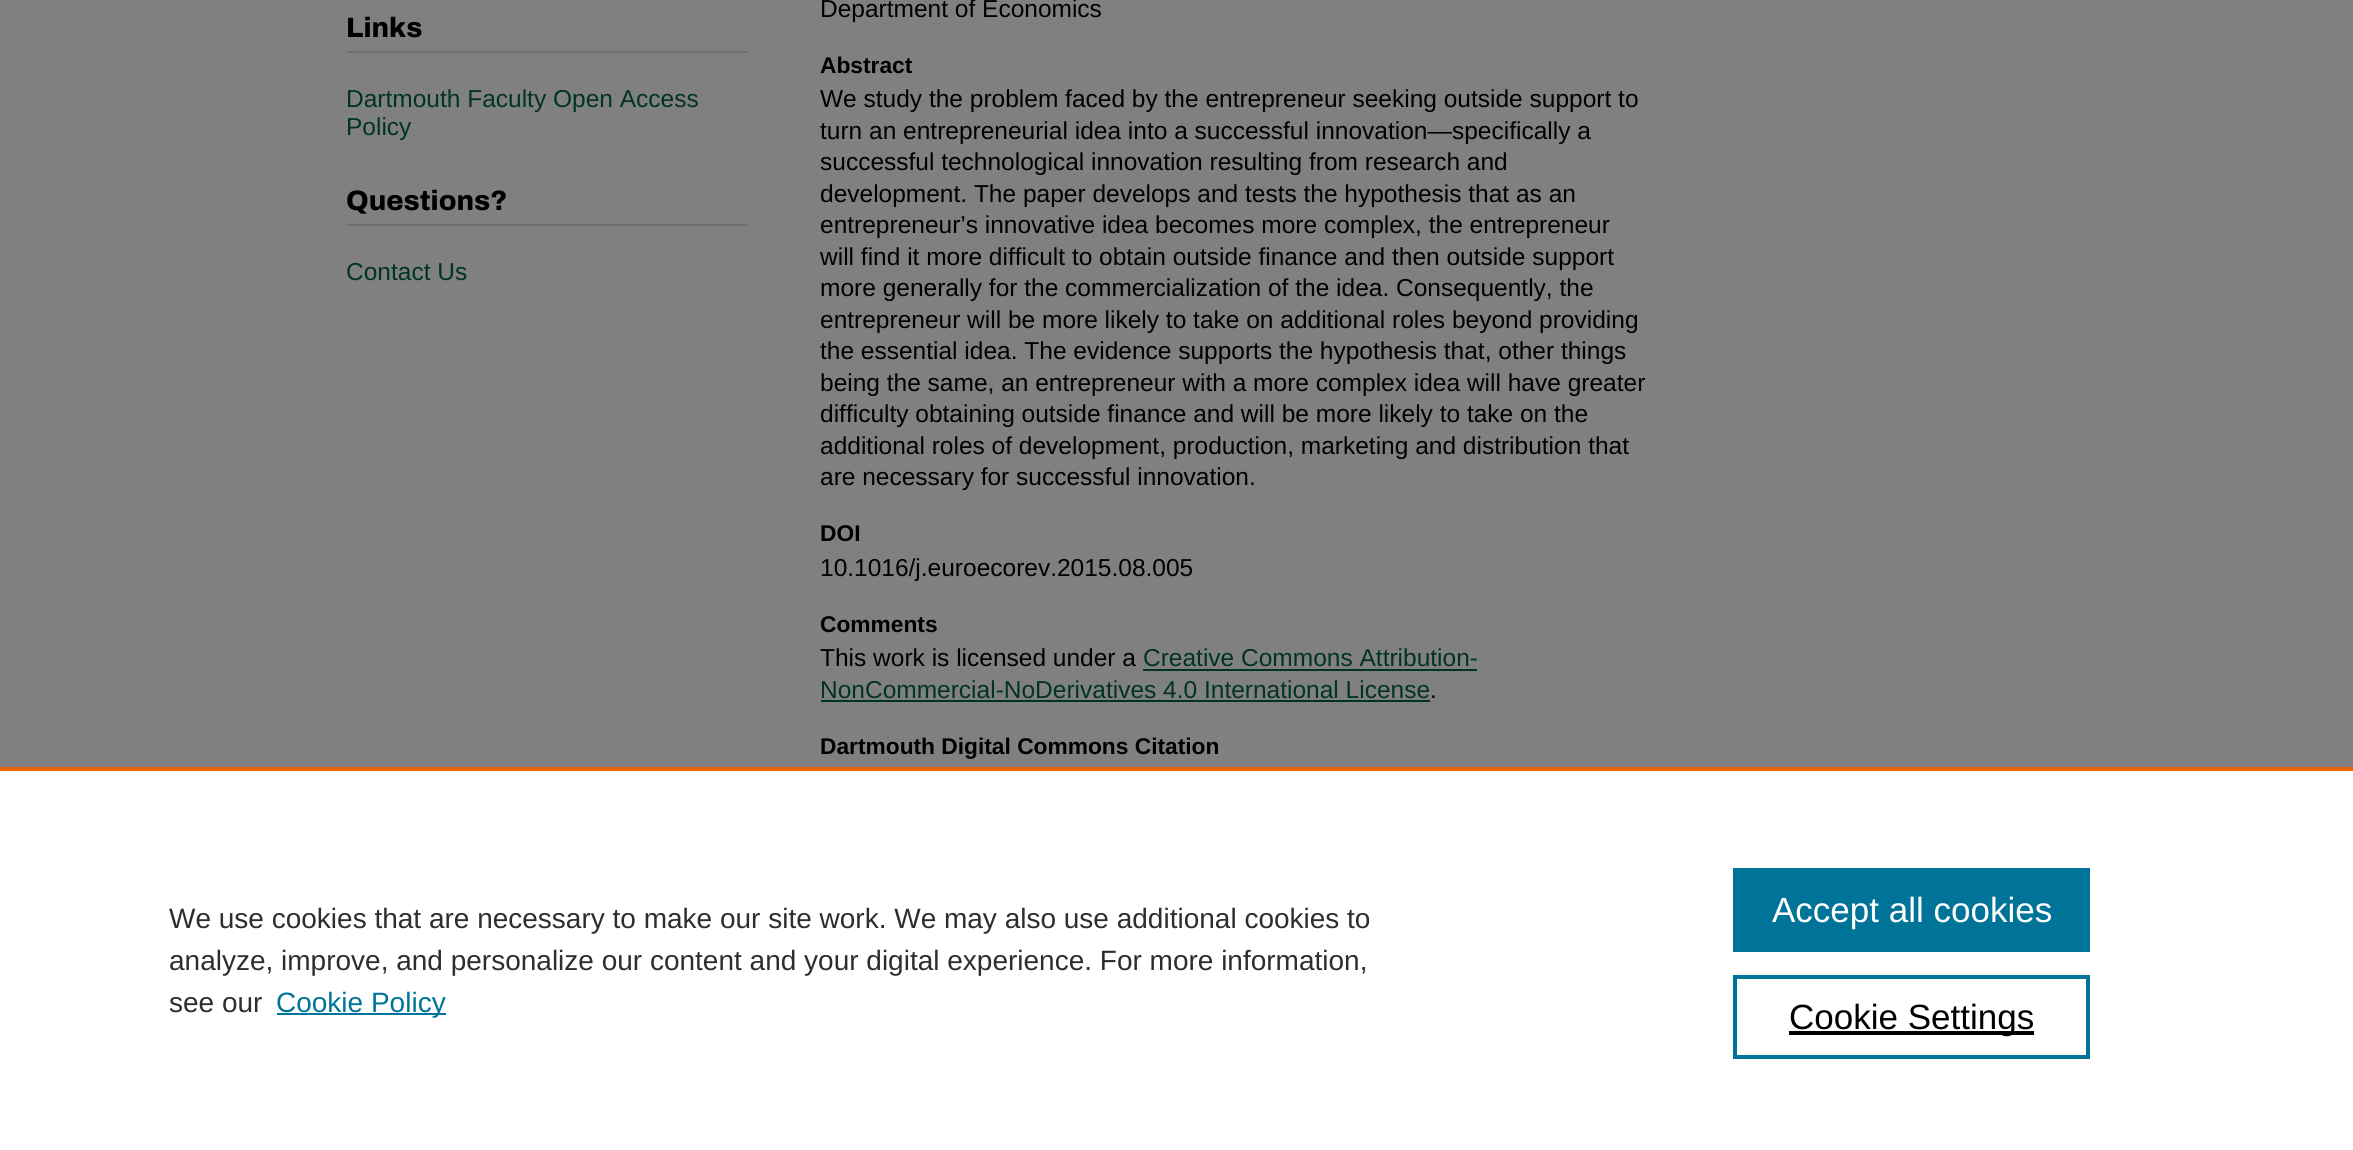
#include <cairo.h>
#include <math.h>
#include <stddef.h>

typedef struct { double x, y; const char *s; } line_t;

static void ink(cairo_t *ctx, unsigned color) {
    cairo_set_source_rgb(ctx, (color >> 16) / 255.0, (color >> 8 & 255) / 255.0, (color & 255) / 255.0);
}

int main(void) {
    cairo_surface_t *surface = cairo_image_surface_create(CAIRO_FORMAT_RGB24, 2353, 1150);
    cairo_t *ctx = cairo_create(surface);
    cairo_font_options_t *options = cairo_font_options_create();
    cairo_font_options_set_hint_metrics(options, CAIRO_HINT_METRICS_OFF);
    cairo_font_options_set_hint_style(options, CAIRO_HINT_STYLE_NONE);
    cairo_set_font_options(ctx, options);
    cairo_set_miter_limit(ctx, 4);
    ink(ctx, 0x808080);
    cairo_paint(ctx);
    ink(ctx, 0x6F6F6F);
    cairo_rectangle(ctx, 347, 51, 400, 2);
    cairo_fill(ctx);
    cairo_select_font_face(ctx, "Archivo ExtraBold", CAIRO_FONT_SLANT_NORMAL, CAIRO_FONT_WEIGHT_NORMAL);
    cairo_set_font_size(ctx, 28);
    ink(ctx, 0x000000);
    cairo_move_to(ctx, 346, 37);
    cairo_show_text(ctx, "Links");
    cairo_select_font_face(ctx, "Liberation Sans", CAIRO_FONT_SLANT_NORMAL, CAIRO_FONT_WEIGHT_NORMAL);
    cairo_set_font_size(ctx, 24.5);
    ink(ctx, 0x01341F);
    cairo_move_to(ctx, 346, 107);
    cairo_show_text(ctx, "Dartmouth Faculty Open Access");
    cairo_move_to(ctx, 346, 135);
    cairo_show_text(ctx, "Policy");
    ink(ctx, 0x6F6F6F);
    cairo_rectangle(ctx, 347, 224, 400, 2);
    cairo_fill(ctx);
    cairo_select_font_face(ctx, "Archivo ExtraBold", CAIRO_FONT_SLANT_NORMAL, CAIRO_FONT_WEIGHT_NORMAL);
    cairo_set_font_size(ctx, 28);
    ink(ctx, 0x000000);
    cairo_move_to(ctx, 346, 210);
    cairo_show_text(ctx, "Questions?");
    cairo_select_font_face(ctx, "Liberation Sans", CAIRO_FONT_SLANT_NORMAL, CAIRO_FONT_WEIGHT_NORMAL);
    cairo_set_font_size(ctx, 24.5);
    ink(ctx, 0x01341F);
    cairo_move_to(ctx, 346, 280);
    cairo_show_text(ctx, "Contact Us");
    ink(ctx, 0x000000);
    cairo_move_to(ctx, 820, 17);
    cairo_show_text(ctx, "Department of Economics");
    cairo_select_font_face(ctx, "Liberation Sans", CAIRO_FONT_SLANT_NORMAL, CAIRO_FONT_WEIGHT_BOLD);
    cairo_set_font_size(ctx, 22.75);
    cairo_move_to(ctx, 820, 73);
    cairo_show_text(ctx, "Abstract");
    cairo_select_font_face(ctx, "Liberation Sans", CAIRO_FONT_SLANT_NORMAL, CAIRO_FONT_WEIGHT_NORMAL);
    cairo_set_font_size(ctx, 24.5);
    {
        static const line_t items[] = {
            {820, 107, "We study the problem faced by the entrepreneur seeking outside support to"},
            {820, 139, "turn an entrepreneurial idea into a successful innovation—specifically a"},
            {820, 170, "successful technological innovation resulting from research and"},
            {820, 202, "development. The paper develops and tests the hypothesis that as an"},
            {820, 233, "entrepreneur’s innovative idea becomes more complex, the entrepreneur"},
            {820, 265, "will find it more difficult to obtain outside finance and then outside support"},
            {820, 296, "more generally for the commercialization of the idea. Consequently, the"},
            {820, 328, "entrepreneur will be more likely to take on additional roles beyond providing"},
            {820, 359, "the essential idea. The evidence supports the hypothesis that, other things"},
            {820, 391, "being the same, an entrepreneur with a more complex idea will have greater"},
            {820, 422, "difficulty obtaining outside finance and will be more likely to take on the"},
            {820, 454, "additional roles of development, production, marketing and distribution that"},
            {820, 485, "are necessary for successful innovation."},
        };
        for (size_t i = 0; i < sizeof items / sizeof *items; i++) {
            cairo_move_to(ctx, items[i].x, items[i].y);
            cairo_show_text(ctx, items[i].s);
        }
    }
    cairo_select_font_face(ctx, "Liberation Sans", CAIRO_FONT_SLANT_NORMAL, CAIRO_FONT_WEIGHT_BOLD);
    cairo_set_font_size(ctx, 22.75);
    cairo_move_to(ctx, 820, 541);
    cairo_show_text(ctx, "DOI");
    cairo_select_font_face(ctx, "Liberation Sans", CAIRO_FONT_SLANT_NORMAL, CAIRO_FONT_WEIGHT_NORMAL);
    cairo_set_font_size(ctx, 24.5);
    cairo_move_to(ctx, 820, 576);
    cairo_show_text(ctx, "10.1016/j.euroecorev.2015.08.005");
    cairo_select_font_face(ctx, "Liberation Sans", CAIRO_FONT_SLANT_NORMAL, CAIRO_FONT_WEIGHT_BOLD);
    cairo_set_font_size(ctx, 22.75);
    cairo_move_to(ctx, 820, 632);
    cairo_show_text(ctx, "Comments");
    cairo_select_font_face(ctx, "Liberation Sans", CAIRO_FONT_SLANT_NORMAL, CAIRO_FONT_WEIGHT_NORMAL);
    cairo_set_font_size(ctx, 24.5);
    cairo_move_to(ctx, 820, 666);
    cairo_show_text(ctx, "This work is licensed under a");
    ink(ctx, 0x01341F);
    cairo_move_to(ctx, 1143, 666);
    cairo_show_text(ctx, "Creative Commons Attribution-");
    cairo_rectangle(ctx, 1143, 669, 334, 2);
    cairo_fill(ctx);
    cairo_move_to(ctx, 820, 698);
    cairo_show_text(ctx, "NonCommercial-NoDerivatives 4.0 International License");
    cairo_rectangle(ctx, 821, 700, 609, 2);
    cairo_fill(ctx);
    ink(ctx, 0x000000);
    cairo_move_to(ctx, 1430, 698);
    cairo_show_text(ctx, ".");
    cairo_select_font_face(ctx, "Liberation Sans", CAIRO_FONT_SLANT_NORMAL, CAIRO_FONT_WEIGHT_BOLD);
    cairo_set_font_size(ctx, 22.75);
    cairo_move_to(ctx, 820, 754);
    cairo_show_text(ctx, "Dartmouth Digital Commons Citation");
    ink(ctx, 0xFFFFFF);
    cairo_rectangle(ctx, 0, 771, 2353, 379);
    cairo_fill(ctx);
    ink(ctx, 0xEB6500);
    cairo_rectangle(ctx, 0, 767, 2353, 4);
    cairo_fill(ctx);
    cairo_select_font_face(ctx, "Liberation Sans", CAIRO_FONT_SLANT_NORMAL, CAIRO_FONT_WEIGHT_NORMAL);
    cairo_set_font_size(ctx, 28);
    ink(ctx, 0x2E2E2E);
    {
        static const line_t items[] = {
            {169, 928, "We use cookies that are necessary to make our site work. We may also use additional cookies to"},
            {169, 970, "analyze, improve, and personalize our content and your digital experience. For more information,"},
            {169, 1012, "see our"},
        };
        for (size_t i = 0; i < sizeof items / sizeof *items; i++) {
            cairo_move_to(ctx, items[i].x, items[i].y);
            cairo_show_text(ctx, items[i].s);
        }
    }
    ink(ctx, 0x007398);
    cairo_rectangle(ctx, 277, 1013, 169, 2);
    cairo_fill(ctx);
    cairo_move_to(ctx, 276, 1012);
    cairo_show_text(ctx, "Cookie Policy");
    cairo_rectangle(ctx, 1733, 868, 357, 84);
    cairo_fill(ctx);
    cairo_set_font_size(ctx, 35);
    ink(ctx, 0xFFFFFF);
    cairo_move_to(ctx, 1772, 922);
    cairo_show_text(ctx, "Accept all cookies");
    cairo_rectangle(ctx, 1735, 977, 353, 80);
    ink(ctx, 0x007398);
    cairo_set_line_width(ctx, 4);
    cairo_stroke(ctx);
    ink(ctx, 0x000000);
    cairo_rectangle(ctx, 1789, 1031, 245, 4);
    cairo_fill(ctx);
    cairo_move_to(ctx, 1789, 1029);
    cairo_show_text(ctx, "Cookie Settings");
    cairo_surface_write_to_png(surface, "image.png");
    cairo_font_options_destroy(options);
    cairo_destroy(ctx);
    cairo_surface_destroy(surface);
    return 0;
}
